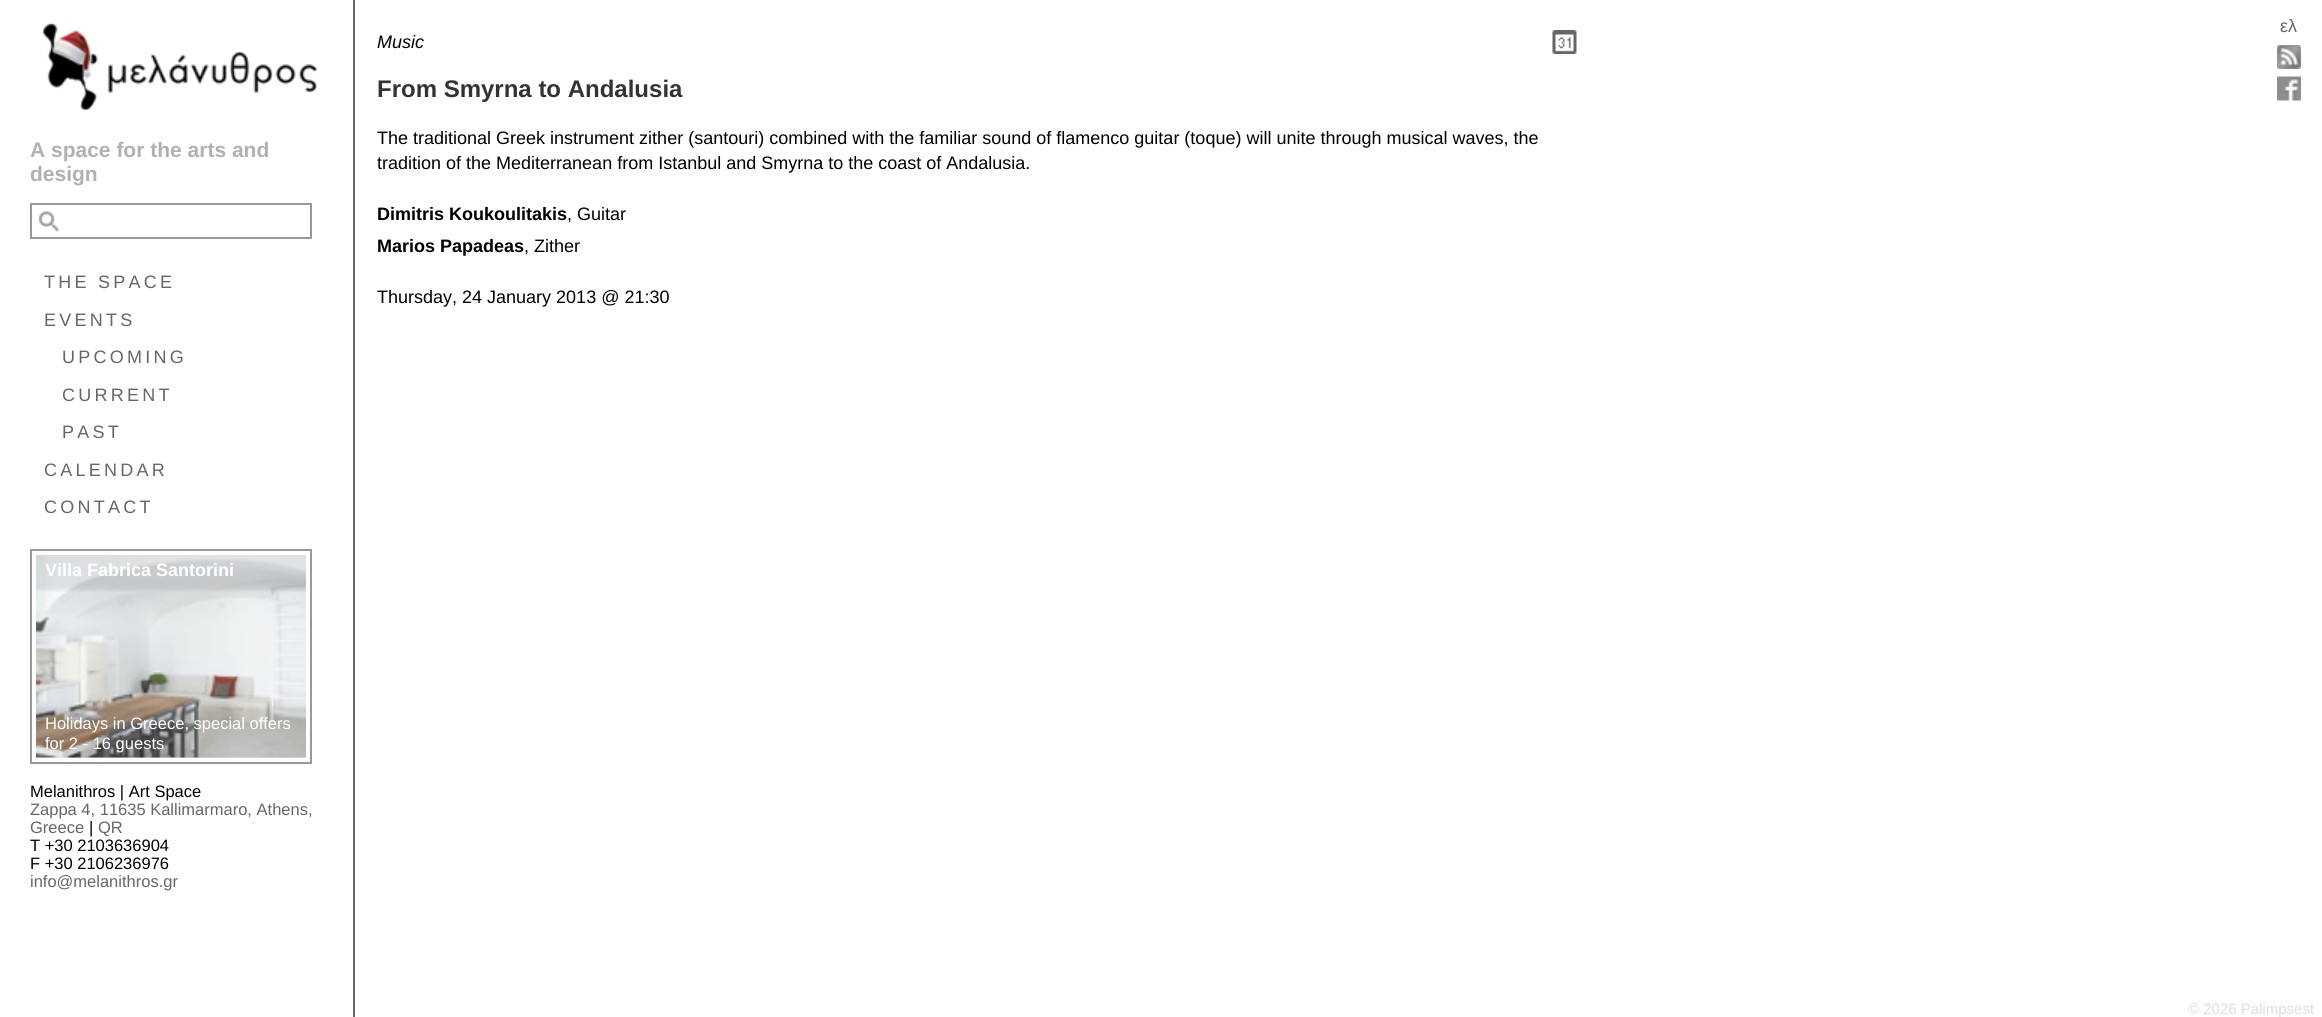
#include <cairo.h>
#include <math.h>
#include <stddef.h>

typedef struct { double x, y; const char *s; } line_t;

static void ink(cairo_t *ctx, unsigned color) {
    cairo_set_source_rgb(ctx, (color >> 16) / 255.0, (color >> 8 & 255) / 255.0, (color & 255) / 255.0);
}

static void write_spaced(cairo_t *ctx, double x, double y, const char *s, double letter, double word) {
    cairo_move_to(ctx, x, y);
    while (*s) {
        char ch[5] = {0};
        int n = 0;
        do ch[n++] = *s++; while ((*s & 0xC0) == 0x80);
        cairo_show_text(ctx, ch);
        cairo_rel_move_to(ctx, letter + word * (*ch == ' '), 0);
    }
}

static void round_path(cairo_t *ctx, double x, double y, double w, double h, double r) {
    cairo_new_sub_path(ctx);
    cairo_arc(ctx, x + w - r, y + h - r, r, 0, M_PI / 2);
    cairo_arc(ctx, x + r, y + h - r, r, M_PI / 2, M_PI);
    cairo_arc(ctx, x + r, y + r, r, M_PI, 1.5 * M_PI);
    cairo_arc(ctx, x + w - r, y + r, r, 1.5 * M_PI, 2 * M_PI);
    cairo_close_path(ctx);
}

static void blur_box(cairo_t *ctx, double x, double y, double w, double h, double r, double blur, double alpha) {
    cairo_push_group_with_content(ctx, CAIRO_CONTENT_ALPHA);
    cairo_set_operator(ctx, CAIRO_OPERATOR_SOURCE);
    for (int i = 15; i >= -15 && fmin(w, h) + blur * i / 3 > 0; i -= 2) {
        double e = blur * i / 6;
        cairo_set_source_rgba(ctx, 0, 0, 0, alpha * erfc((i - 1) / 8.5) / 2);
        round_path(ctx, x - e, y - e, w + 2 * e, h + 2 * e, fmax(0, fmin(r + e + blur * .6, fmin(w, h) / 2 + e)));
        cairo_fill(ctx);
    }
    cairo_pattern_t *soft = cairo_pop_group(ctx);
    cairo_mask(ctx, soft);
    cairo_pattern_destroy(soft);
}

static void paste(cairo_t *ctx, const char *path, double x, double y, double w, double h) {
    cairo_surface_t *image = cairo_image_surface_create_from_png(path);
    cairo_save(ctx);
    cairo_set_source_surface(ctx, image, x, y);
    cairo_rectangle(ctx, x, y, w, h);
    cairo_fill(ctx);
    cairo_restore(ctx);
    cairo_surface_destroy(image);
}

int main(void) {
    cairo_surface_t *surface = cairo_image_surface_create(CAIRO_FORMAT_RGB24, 2322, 1017);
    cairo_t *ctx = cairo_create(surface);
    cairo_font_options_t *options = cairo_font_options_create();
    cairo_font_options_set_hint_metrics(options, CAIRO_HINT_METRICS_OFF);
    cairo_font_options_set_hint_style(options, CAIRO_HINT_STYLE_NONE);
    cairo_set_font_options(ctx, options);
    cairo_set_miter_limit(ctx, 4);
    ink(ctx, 0xFFFFFF);
    cairo_paint(ctx);
    cairo_select_font_face(ctx, "Liberation Sans", CAIRO_FONT_SLANT_NORMAL, CAIRO_FONT_WEIGHT_NORMAL);
    cairo_set_font_size(ctx, 18);
    ink(ctx, 0x666666);
    cairo_move_to(ctx, 2280, 32);
    cairo_show_text(ctx, "ελ");
    paste(ctx, "media/1.png", 2277, 45, 24, 24);
    paste(ctx, "media/2.png", 2277, 76, 24, 25);
    cairo_rectangle(ctx, 353, 0, 2, 1017);
    cairo_fill(ctx);
    paste(ctx, "media/3.png", 43, 23, 274, 87);
    paste(ctx, "media/4.png", 52, 30, 41, 50);
    cairo_select_font_face(ctx, "Liberation Sans", CAIRO_FONT_SLANT_NORMAL, CAIRO_FONT_WEIGHT_BOLD);
    cairo_set_font_size(ctx, 21);
    ink(ctx, 0xB1B1B1);
    cairo_move_to(ctx, 30, 157);
    cairo_show_text(ctx, "A space for the arts and");
    cairo_move_to(ctx, 30, 181);
    cairo_show_text(ctx, "design");
    cairo_rectangle(ctx, 31, 204, 280, 34);
    ink(ctx, 0x999999);
    cairo_stroke(ctx);
    paste(ctx, "media/5.png", 38, 211, 21, 21);
    cairo_select_font_face(ctx, "Liberation Sans", CAIRO_FONT_SLANT_NORMAL, CAIRO_FONT_WEIGHT_NORMAL);
    cairo_set_font_size(ctx, 18);
    ink(ctx, 0x666666);
    {
        static const line_t items[] = {
            {44, 288, "THE SPACE"},
            {44, 326, "EVENTS"},
            {62, 363, "UPCOMING"},
            {62, 401, "CURRENT"},
            {62, 438, "PAST"},
            {44, 476, "CALENDAR"},
            {44, 513, "CONTACT"},
        };
        for (size_t i = 0; i < sizeof items / sizeof *items; i++) {
            write_spaced(ctx, items[i].x, items[i].y, items[i].s, 3.25, 0);
        }
    }
    cairo_rectangle(ctx, 31, 550, 280, 213);
    ink(ctx, 0x999999);
    cairo_stroke(ctx);
    paste(ctx, "media/6.png", 36, 555, 270, 203);
    cairo_save(ctx);
    cairo_rectangle(ctx, 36, 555, 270, 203);
    cairo_clip(ctx);
    cairo_rectangle(ctx, 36, 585, 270, 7);
    cairo_clip(ctx);
    ink(ctx, 0x000000);
    blur_box(ctx, 32, 551, 279, 39, 0, 2, 0.1);
    cairo_restore(ctx);
    cairo_set_source_rgba(ctx, 0, 0, 0, 0.1);
    cairo_rectangle(ctx, 36, 555, 270, 30);
    cairo_fill(ctx);
    cairo_select_font_face(ctx, "Liberation Sans", CAIRO_FONT_SLANT_NORMAL, CAIRO_FONT_WEIGHT_BOLD);
    ink(ctx, 0xFFFFFF);
    cairo_move_to(ctx, 45, 576);
    cairo_show_text(ctx, "Villa Fabrica Santorini");
    cairo_save(ctx);
    cairo_rectangle(ctx, 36, 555, 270, 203);
    cairo_clip(ctx);
    cairo_set_fill_rule(ctx, CAIRO_FILL_RULE_EVEN_ODD);
    cairo_new_path(ctx);
    cairo_move_to(ctx, 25, 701);
    cairo_line_to(ctx, 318, 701);
    cairo_line_to(ctx, 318, 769);
    cairo_line_to(ctx, 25, 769);
    cairo_close_path(ctx);
    cairo_move_to(ctx, 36, 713);
    cairo_line_to(ctx, 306, 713);
    cairo_line_to(ctx, 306, 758);
    cairo_line_to(ctx, 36, 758);
    cairo_close_path(ctx);
    cairo_clip(ctx);
    ink(ctx, 0x000000);
    blur_box(ctx, 32, 708, 279, 54, 0, 2, 0.1);
    cairo_restore(ctx);
    cairo_set_source_rgba(ctx, 0, 0, 0, 0.1);
    cairo_rectangle(ctx, 36, 713, 270, 45);
    cairo_fill(ctx);
    cairo_select_font_face(ctx, "Liberation Sans", CAIRO_FONT_SLANT_NORMAL, CAIRO_FONT_WEIGHT_NORMAL);
    cairo_set_font_size(ctx, 16.5);
    ink(ctx, 0xFFFFFF);
    cairo_move_to(ctx, 45, 729);
    cairo_show_text(ctx, "Holidays in Greece, special offers");
    cairo_move_to(ctx, 45, 749);
    cairo_show_text(ctx, "for 2 - 16 guests");
    ink(ctx, 0x000000);
    cairo_move_to(ctx, 30, 797);
    cairo_show_text(ctx, "Melanithros | Art Space");
    ink(ctx, 0x666666);
    cairo_move_to(ctx, 30, 815);
    cairo_show_text(ctx, "Zappa 4, 11635 Kallimarmaro, Athens,");
    cairo_move_to(ctx, 30, 833);
    cairo_show_text(ctx, "Greece");
    ink(ctx, 0x000000);
    cairo_move_to(ctx, 89, 833);
    cairo_show_text(ctx, "|");
    ink(ctx, 0x666666);
    cairo_move_to(ctx, 98, 833);
    cairo_show_text(ctx, "QR");
    ink(ctx, 0x000000);
    cairo_move_to(ctx, 30, 851);
    cairo_show_text(ctx, "Τ +30 2103636904");
    cairo_move_to(ctx, 30, 869);
    cairo_show_text(ctx, "F +30 2106236976");
    ink(ctx, 0x666666);
    cairo_move_to(ctx, 30, 887);
    cairo_show_text(ctx, "info@melanithros.gr");
    cairo_select_font_face(ctx, "Liberation Sans", CAIRO_FONT_SLANT_ITALIC, CAIRO_FONT_WEIGHT_NORMAL);
    cairo_set_font_size(ctx, 18);
    ink(ctx, 0x000000);
    cairo_move_to(ctx, 377, 48);
    cairo_show_text(ctx, "Music");
    paste(ctx, "media/7.png", 1552, 30, 25, 24);
    cairo_select_font_face(ctx, "Liberation Sans", CAIRO_FONT_SLANT_NORMAL, CAIRO_FONT_WEIGHT_BOLD);
    cairo_set_font_size(ctx, 24);
    ink(ctx, 0x333333);
    cairo_move_to(ctx, 377, 97);
    cairo_show_text(ctx, "From Smyrna to Andalusia");
    cairo_select_font_face(ctx, "Liberation Sans", CAIRO_FONT_SLANT_NORMAL, CAIRO_FONT_WEIGHT_NORMAL);
    cairo_set_font_size(ctx, 18);
    ink(ctx, 0x000000);
    cairo_move_to(ctx, 377, 144);
    cairo_show_text(ctx, "The traditional Greek instrument zither (santouri) combined with the familiar sound of flamenco guitar (toque) will unite through musical waves, the");
    cairo_move_to(ctx, 377, 169);
    cairo_show_text(ctx, "tradition of the Mediterranean from Istanbul and Smyrna to the coast of Andalusia.");
    cairo_select_font_face(ctx, "Liberation Sans", CAIRO_FONT_SLANT_NORMAL, CAIRO_FONT_WEIGHT_BOLD);
    cairo_move_to(ctx, 377, 220);
    cairo_show_text(ctx, "Dimitris Koukoulitakis");
    cairo_select_font_face(ctx, "Liberation Sans", CAIRO_FONT_SLANT_NORMAL, CAIRO_FONT_WEIGHT_NORMAL);
    cairo_move_to(ctx, 567, 220);
    cairo_show_text(ctx, ", Guitar");
    cairo_select_font_face(ctx, "Liberation Sans", CAIRO_FONT_SLANT_NORMAL, CAIRO_FONT_WEIGHT_BOLD);
    cairo_move_to(ctx, 377, 252);
    cairo_show_text(ctx, "Marios Papadeas");
    cairo_select_font_face(ctx, "Liberation Sans", CAIRO_FONT_SLANT_NORMAL, CAIRO_FONT_WEIGHT_NORMAL);
    cairo_move_to(ctx, 524, 252);
    cairo_show_text(ctx, ", Zither");
    cairo_move_to(ctx, 377, 303);
    cairo_show_text(ctx, "Thursday, 24 January 2013 @ 21:30");
    cairo_set_font_size(ctx, 15);
    ink(ctx, 0xDDDDDD);
    cairo_move_to(ctx, 2188, 1014);
    cairo_show_text(ctx, "© 2026 Palimpsest");
    cairo_surface_write_to_png(surface, "image.png");
    cairo_font_options_destroy(options);
    cairo_destroy(ctx);
    cairo_surface_destroy(surface);
    return 0;
}
